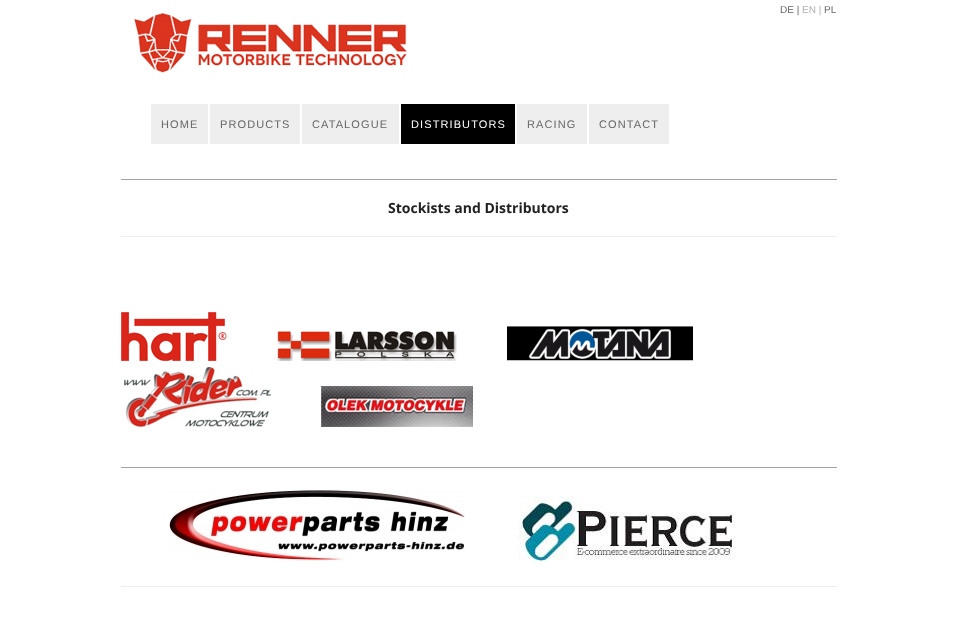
<!DOCTYPE html>
<meta charset="utf-8">
<style>body { margin: 0 } canvas { display: block }</style>
<canvas id="canvas" width="957" height="619"></canvas>
<img id="img1" src="img_01.png" hidden>
<img id="img2" src="img_02.png" hidden>
<img id="img3" src="img_03.png" hidden>
<img id="img4" src="img_04.png" hidden>
<img id="img5" src="img_05.png" hidden>
<img id="img6" src="img_06.png" hidden>
<img id="img7" src="img_07.png" hidden>
<img id="img8" src="img_08.png" hidden>
<script>
window.onload = function () {
	const canvas = document.getElementById("canvas");
	const ctx = canvas.getContext("2d");
	ctx.miterLimit = 4;
	ctx.fontKerning = "normal";
	function txt(s, x, y) {
		ctx.fillText(s, x, y);
	}
	function fill(x, y, w, h) {
		ctx.fillRect(x, y, w, h);
	}
	function img(id, x, y, w, h) {
		ctx.drawImage(document.getElementById(id), x, y, w, h);
	}

	ctx.fillStyle = "#FFFFFF";
	fill(0, 0, 957, 619);
	img("img1", 134, 13, 273, 60);
	ctx.fillStyle = "#EEEEEE";
	fill(151, 104, 518, 40);
	ctx.fillStyle = "#FFFFFF";
	fill(208, 104, 2, 40);
	fill(300, 104, 2, 40);
	fill(399, 104, 2, 40);
	fill(515, 104, 2, 40);
	ctx.fillStyle = "#000000";
	fill(401, 104, 114, 40);
	ctx.fillStyle = "#FFFFFF";
	fill(587, 104, 2, 40);
	ctx.fillStyle = "#A2A2A2";
	fill(121, 179, 716, 1);
	ctx.fillStyle = "#EEEEEE";
	fill(121, 236, 716, 1);
	img("img2", 121, 312, 106, 49);
	img("img3", 277, 331, 180, 30);
	img("img4", 507, 326, 186, 35);
	img("img5", 124, 367, 147, 60);
	img("img6", 321, 386, 152, 41);
	ctx.fillStyle = "#A2A2A2";
	fill(121, 467, 716, 1);
	ctx.fillStyle = "#EEEEEE";
	fill(121, 586, 716, 1);
	img("img7", 169, 490, 296, 71);
	img("img8", 519, 496, 216, 66);
	ctx.font = "10px Liberation Sans";
	ctx.fillStyle = "#666666";
	txt("DE |", 780, 13);
	ctx.fillStyle = "#B0AFAF";
	txt("EN |", 802, 13);
	ctx.fillStyle = "#666666";
	txt("PL", 824, 13);
	ctx.letterSpacing = "1.1px";
	ctx.font = "11px Liberation Sans";
	txt("HOME", 161, 128);
	txt("PRODUCTS", 220, 128);
	txt("CATALOGUE", 312, 128);
	ctx.fillStyle = "#FFFFFF";
	txt("DISTRIBUTORS", 411, 128);
	ctx.fillStyle = "#666666";
	txt("RACING", 527, 128);
	txt("CONTACT", 599, 128);
	ctx.letterSpacing = "0px";
	ctx.font = "bold 14px Open Sans";
	ctx.fillStyle = "#222222";
	txt("Stockists and Distributors", 388, 213);
};
</script>
